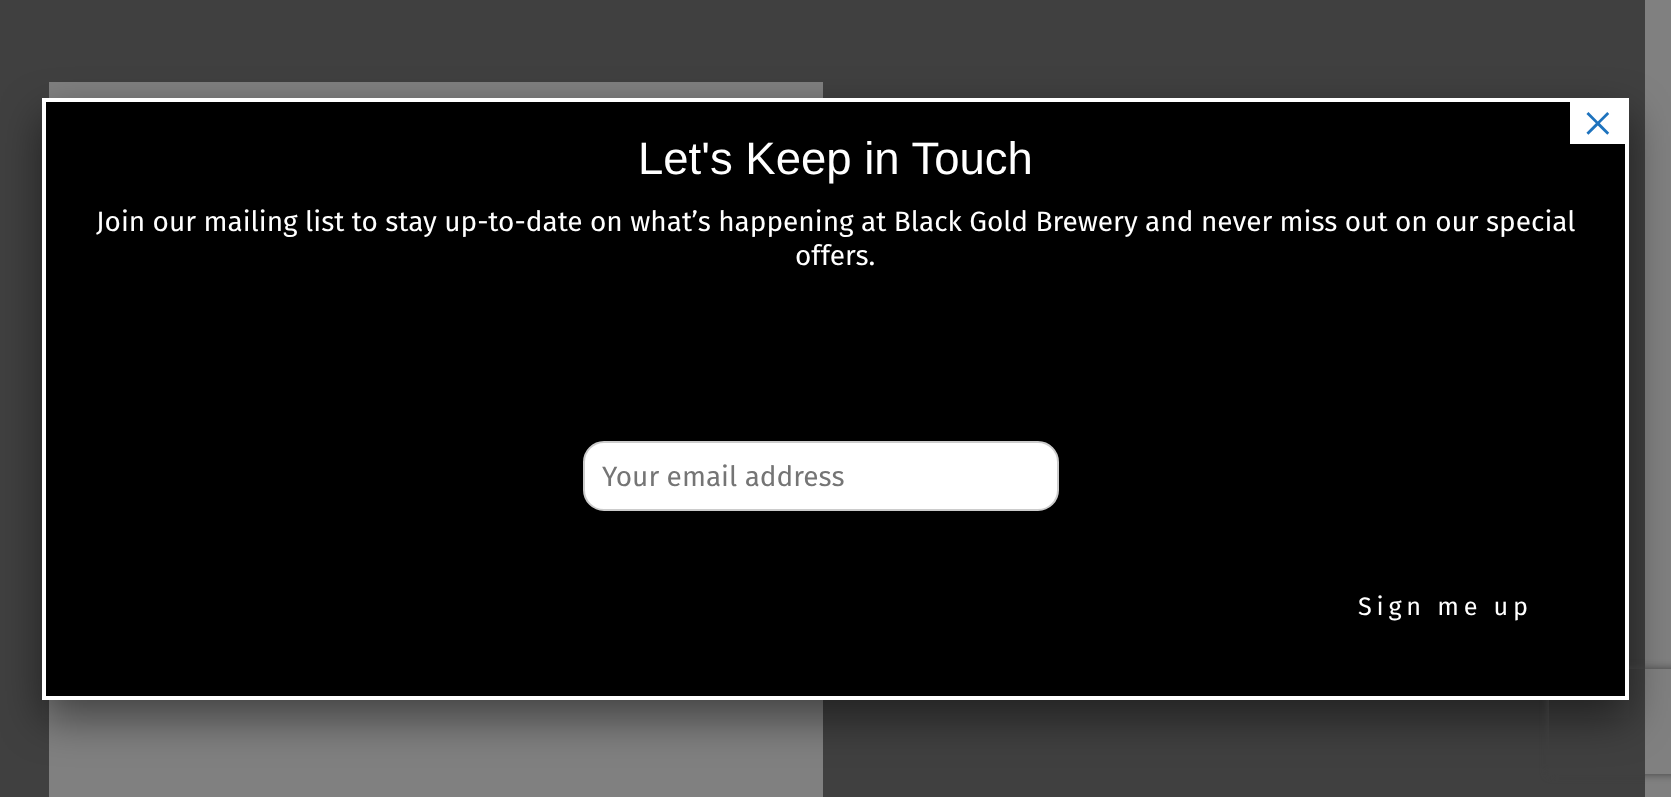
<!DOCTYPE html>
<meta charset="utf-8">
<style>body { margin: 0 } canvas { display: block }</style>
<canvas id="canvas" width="1671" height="797"></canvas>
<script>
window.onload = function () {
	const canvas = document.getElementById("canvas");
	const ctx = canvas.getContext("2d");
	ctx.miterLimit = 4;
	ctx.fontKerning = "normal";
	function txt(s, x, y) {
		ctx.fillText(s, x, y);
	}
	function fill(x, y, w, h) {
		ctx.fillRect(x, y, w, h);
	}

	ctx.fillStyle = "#808080";
	fill(0, 0, 1671, 797);
	ctx.fillStyle = "#404040";
	fill(0, 0, 1645, 797);
	ctx.fillStyle = "#808080";
	fill(49, 82, 774, 715);
	ctx.fillStyle = "rgba(2, 2, 2, 0.5)";
	ctx.filter = "blur(22px)";
	ctx.beginPath();
	ctx.rect(42, 116, 1587, 602);
	ctx.fill();
	ctx.filter = "none";
	ctx.save();
	ctx.beginPath();
	ctx.moveTo(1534, 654);
	ctx.lineTo(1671, 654);
	ctx.lineTo(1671, 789);
	ctx.lineTo(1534, 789);
	ctx.closePath();
	ctx.moveTo(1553, 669);
	ctx.lineTo(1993, 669);
	ctx.bezierCurveTo(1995, 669, 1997, 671, 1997, 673);
	ctx.lineTo(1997, 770);
	ctx.bezierCurveTo(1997, 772, 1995, 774, 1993, 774);
	ctx.lineTo(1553, 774);
	ctx.bezierCurveTo(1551, 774, 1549, 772, 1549, 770);
	ctx.lineTo(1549, 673);
	ctx.bezierCurveTo(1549, 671, 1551, 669, 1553, 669);
	ctx.closePath();
	ctx.clip("evenodd");
	ctx.fillStyle = "#404040";
	ctx.filter = "blur(4.5px)";
	ctx.beginPath();
	ctx.roundRect(1549, 669, 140, 105, 4);
	ctx.fill();
	ctx.filter = "none";
	ctx.restore();
	ctx.fillStyle = "#000000";
	ctx.beginPath();
	ctx.rect(44, 100, 1583, 598);
	ctx.fill();
	ctx.strokeStyle = "#FFFFFF";
	ctx.lineWidth = 4;
	ctx.stroke();
	ctx.fillStyle = "#FFFFFF";
	fill(1570, 102, 55, 42);
	ctx.beginPath();
	ctx.roundRect(584, 442, 474, 68, 20);
	ctx.fill();
	ctx.strokeStyle = "#CCCCCC";
	ctx.lineWidth = 2;
	ctx.stroke();
	ctx.font = "56px Liberation Serif";
	ctx.fillStyle = "#1E73BE";
	txt("×", 1582, 142);
	ctx.font = "45.5px Liberation Sans";
	ctx.fillStyle = "#FFFFFF";
	txt("Let's Keep in Touch", 638, 174);
	ctx.font = "28px Fira Sans";
	txt("Join our mailing list to stay up-to-date on what’s happening at Black Gold Brewery and never miss out on our special", 96, 231);
	txt("offers.", 795, 265);
	ctx.fillStyle = "#757575";
	txt("Your email address", 602, 486);
	ctx.letterSpacing = "4.75px";
	ctx.font = "25.25px Fira Sans";
	ctx.fillStyle = "#FFFFFF";
	txt("Sign me up", 1358, 615);
};
</script>
